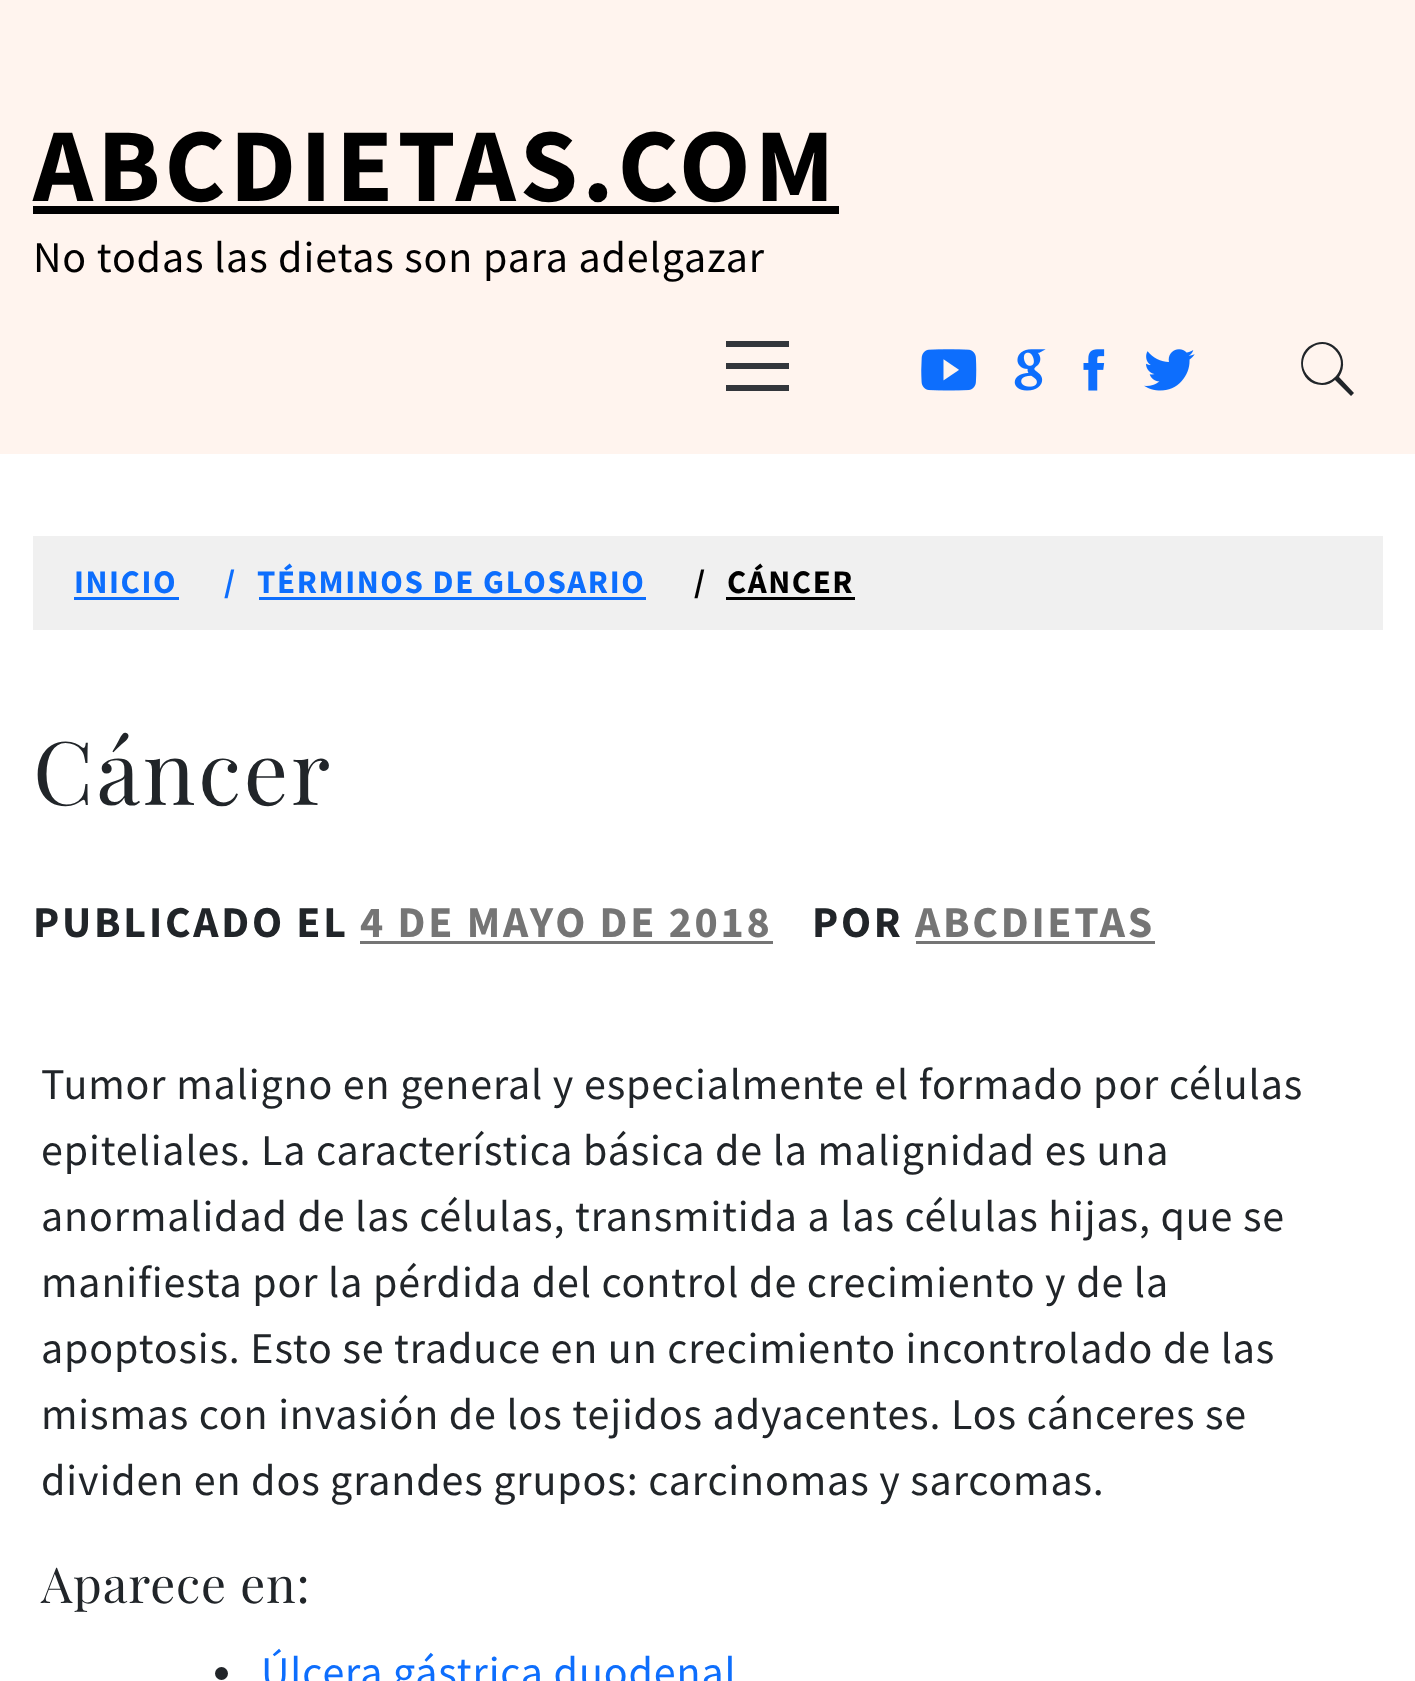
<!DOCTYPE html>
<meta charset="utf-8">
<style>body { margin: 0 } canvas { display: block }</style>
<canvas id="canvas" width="1415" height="1681"></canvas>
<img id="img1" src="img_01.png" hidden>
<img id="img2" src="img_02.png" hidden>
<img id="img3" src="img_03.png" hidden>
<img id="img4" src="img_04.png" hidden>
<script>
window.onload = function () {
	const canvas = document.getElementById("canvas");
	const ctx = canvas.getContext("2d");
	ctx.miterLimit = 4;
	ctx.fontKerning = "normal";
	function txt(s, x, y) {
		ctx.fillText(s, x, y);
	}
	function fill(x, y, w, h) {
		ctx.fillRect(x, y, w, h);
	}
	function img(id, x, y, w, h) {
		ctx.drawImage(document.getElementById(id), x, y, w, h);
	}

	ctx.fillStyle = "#FFFFFF";
	fill(0, 0, 1415, 1681);
	ctx.fillStyle = "#FFF4EE";
	fill(0, 0, 1415, 454);
	ctx.fillStyle = "#000000";
	fill(33, 206, 806, 8);
	ctx.fillStyle = "#33363B";
	fill(726, 363, 63, 6);
	fill(726, 341, 63, 6);
	fill(726, 385, 63, 6);
	img("img1", 921, 349, 56, 42);
	img("img2", 1014, 349, 32, 42);
	img("img3", 1083, 349, 22, 42);
	img("img4", 1144, 349, 51, 42);
	ctx.fillStyle = "#212529";
	ctx.beginPath();
	ctx.moveTo(1354, 393);
	ctx.lineTo(1351, 396);
	ctx.lineTo(1335, 380);
	ctx.bezierCurveTo(1332, 383, 1327, 385, 1322, 385);
	ctx.bezierCurveTo(1298, 385, 1293, 350, 1316, 343);
	ctx.bezierCurveTo(1322, 341, 1329, 342, 1334, 346);
	ctx.bezierCurveTo(1344, 353, 1346, 367, 1339, 377);
	ctx.closePath();
	ctx.moveTo(1309, 377);
	ctx.bezierCurveTo(1326, 395, 1353, 368, 1335, 350);
	ctx.bezierCurveTo(1318, 332, 1291, 359, 1309, 377);
	ctx.closePath();
	ctx.fill();
	ctx.fillStyle = "#F0F0F0";
	fill(33, 536, 1350, 94);
	ctx.fillStyle = "#0D6EFD";
	fill(74, 597, 105, 3);
	fill(259, 597, 387, 3);
	ctx.fillStyle = "#000000";
	fill(726, 597, 129, 3);
	ctx.fillStyle = "#757575";
	fill(360, 941, 413, 3);
	fill(916, 941, 239, 3);
	ctx.fillStyle = "#212529";
	ctx.beginPath();
	ctx.arc(221.5, 1673.5, 6.5, 0, Math.PI * 2);
	ctx.fill();
	ctx.letterSpacing = "4.25px";
	ctx.font = "bold 104.5px Source Sans Pro";
	ctx.fillStyle = "#000000";
	txt("ABCDIETAS.COM", 33, 201);
	ctx.letterSpacing = "0.88px";
	ctx.font = "44px Source Sans Pro";
	txt("No todas las dietas son para adelgazar", 33, 272);
	ctx.letterSpacing = "1.6px";
	ctx.font = "bold 33px Source Sans Pro";
	ctx.fillStyle = "#0D6EFD";
	txt("INICIO", 74, 593);
	txt("/", 224, 593);
	txt("TÉRMINOS DE GLOSARIO", 257, 593);
	ctx.fillStyle = "#000000";
	txt("/", 694, 593);
	txt("CÁNCER", 727, 593);
	ctx.letterSpacing = "2.75px";
	ctx.font = "88px Playfair Display";
	ctx.fillStyle = "#212529";
	txt("Cáncer", 33, 805);
	ctx.font = "bold 44px Source Sans Pro";
	txt("PUBLICADO EL", 33, 937);
	ctx.fillStyle = "#757575";
	txt("4 DE MAYO DE 2018", 360, 937);
	ctx.fillStyle = "#212529";
	txt("POR", 812, 937);
	ctx.fillStyle = "#757575";
	txt("ABCDIETAS", 915, 937);
	ctx.letterSpacing = "0.88px";
	ctx.font = "44px Source Sans Pro";
	ctx.fillStyle = "#212529";
	txt("Tumor maligno en general y especialmente el formado por células", 41, 1099);
	txt("epiteliales. La característica básica de la malignidad es una", 41, 1165);
	txt("anormalidad de las células, transmitida a las células hijas, que se", 41, 1231);
	txt("manifiesta por la pérdida del control de crecimiento y de la", 41, 1297);
	txt("apoptosis. Esto se traduce en un crecimiento incontrolado de las", 41, 1363);
	txt("mismas con invasión de los tejidos adyacentes. Los cánceres se", 41, 1429);
	txt("dividen en dos grandes grupos: carcinomas y sarcomas.", 41, 1495);
	ctx.font = "49.5px Playfair Display";
	txt("Aparece en:", 41, 1603);
	ctx.font = "44px Source Sans Pro";
	ctx.fillStyle = "#0D6EFD";
	txt("Úlcera gástrica duodenal", 261, 1687);
};
</script>
